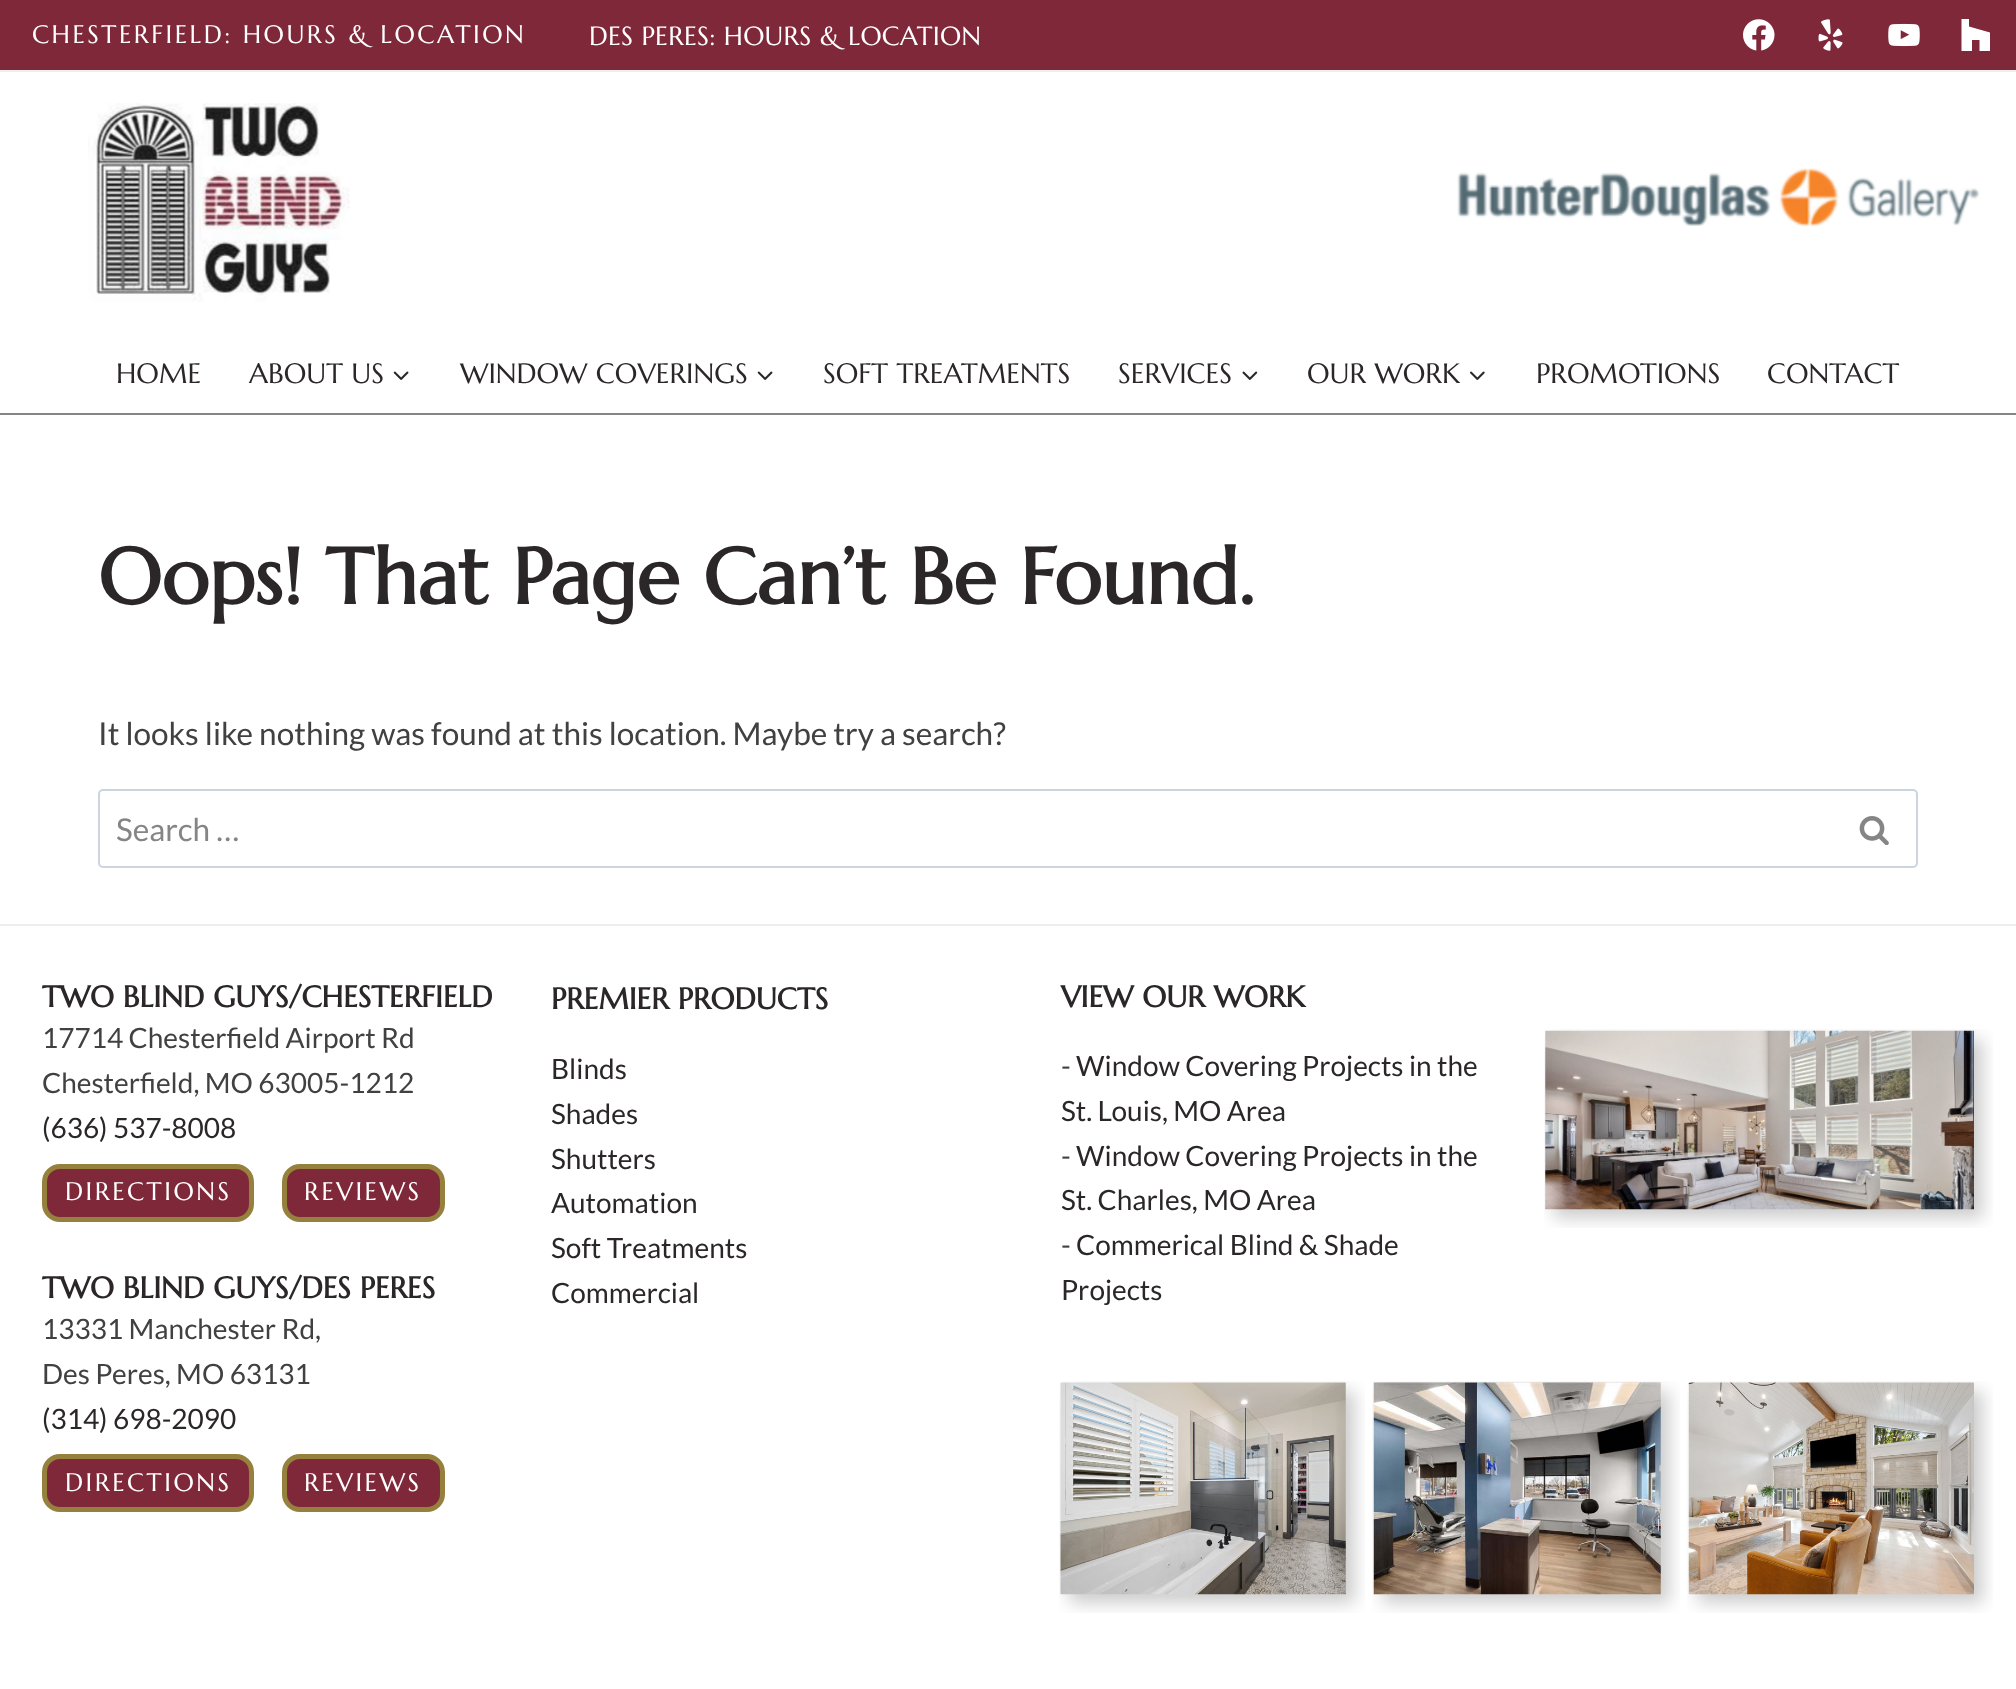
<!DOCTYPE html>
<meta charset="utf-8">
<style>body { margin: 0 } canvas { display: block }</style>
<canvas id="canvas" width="2016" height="1689"></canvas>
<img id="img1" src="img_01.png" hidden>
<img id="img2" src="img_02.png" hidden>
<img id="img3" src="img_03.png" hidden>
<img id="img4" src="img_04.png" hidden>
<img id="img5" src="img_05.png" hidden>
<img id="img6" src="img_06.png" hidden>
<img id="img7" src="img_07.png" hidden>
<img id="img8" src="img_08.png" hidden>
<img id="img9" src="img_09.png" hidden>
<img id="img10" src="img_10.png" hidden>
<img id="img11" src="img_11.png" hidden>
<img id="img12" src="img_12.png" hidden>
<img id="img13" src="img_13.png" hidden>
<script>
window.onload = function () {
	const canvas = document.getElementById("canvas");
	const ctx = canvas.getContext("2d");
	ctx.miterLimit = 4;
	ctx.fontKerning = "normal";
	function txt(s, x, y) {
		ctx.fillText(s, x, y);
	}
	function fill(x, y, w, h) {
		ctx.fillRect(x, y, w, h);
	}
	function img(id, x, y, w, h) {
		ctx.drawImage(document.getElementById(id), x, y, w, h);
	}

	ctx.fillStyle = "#FFFFFF";
	fill(0, 0, 2016, 1689);
	ctx.fillStyle = "#7F2839";
	fill(0, 0, 2016, 70);
	ctx.fillStyle = "#EEEEEE";
	fill(0, 70, 2016, 2);
	img("img1", 1743, 19, 32, 32);
	img("img2", 1818, 19, 25, 32);
	img("img3", 1888, 23, 32, 24);
	ctx.fillStyle = "#FFFFFF";
	ctx.beginPath();
	ctx.moveTo(1979.5, 51);
	ctx.lineTo(1990, 51);
	ctx.lineTo(1990, 32.5);
	ctx.lineTo(1969, 26.5);
	ctx.lineTo(1969, 19);
	ctx.lineTo(1961.5, 19);
	ctx.lineTo(1961.5, 51);
	ctx.lineTo(1972, 51);
	ctx.lineTo(1972, 40);
	ctx.lineTo(1979.5, 40);
	ctx.closePath();
	ctx.fill();
	img("img4", 88, 103, 262, 199);
	img("img5", 1457, 168, 523, 58);
	ctx.fillStyle = "#858585";
	fill(0, 413, 2016, 2);
	img("img6", 393, 371, 16, 9);
	img("img6", 757, 371, 16, 9);
	img("img7", 1242, 371, 16, 9);
	img("img8", 1470, 371, 15, 9);
	ctx.beginPath();
	ctx.roundRect(99, 790, 1818, 77, 4);
	ctx.strokeStyle = "#CBD5E0";
	ctx.lineWidth = 2;
	ctx.stroke();
	img("img9", 1859, 816, 30, 29);
	ctx.fillStyle = "#EEEEEE";
	fill(0, 924, 2016, 2);
	ctx.fillStyle = "#7F2839";
	ctx.beginPath();
	ctx.roundRect(44.5, 1166.5, 207, 53, 15.5);
	ctx.fill();
	ctx.strokeStyle = "#95803D";
	ctx.lineWidth = 5;
	ctx.stroke();
	ctx.beginPath();
	ctx.roundRect(284.5, 1166.5, 158, 53, 15.5);
	ctx.fill();
	ctx.stroke();
	ctx.beginPath();
	ctx.roundRect(44.5, 1456.5, 207, 53, 15.5);
	ctx.fill();
	ctx.stroke();
	ctx.beginPath();
	ctx.roundRect(284.5, 1456.5, 158, 53, 15.5);
	ctx.fill();
	ctx.stroke();
	img("img10", 1544, 1029, 449, 199);
	img("img11", 1059, 1381, 306, 232);
	img("img12", 1372, 1381, 308, 232);
	img("img13", 1687, 1381, 306, 232);
	ctx.letterSpacing = "2.5px";
	ctx.font = "25.25px Marcellus";
	ctx.fillStyle = "#FFFFFF";
	txt("CHESTERFIELD: HOURS & LOCATION", 32, 43);
	ctx.letterSpacing = "0.25px";
	ctx.font = "26.25px Marcellus";
	txt("DES PERES: HOURS & LOCATION", 589, 45);
	ctx.letterSpacing = "0px";
	ctx.font = "28px Marcellus";
	ctx.fillStyle = "#2B2729";
	txt("HOME", 116, 383);
	txt("ABOUT US", 249, 383);
	txt("WINDOW COVERINGS", 460, 383);
	txt("SOFT TREATMENTS", 823, 383);
	txt("SERVICES", 1118, 383);
	txt("OUR WORK", 1307, 383);
	txt("PROMOTIONS", 1536, 383);
	txt("CONTACT", 1767, 383);
	ctx.font = "bold 78.75px Marcellus";
	txt("Oops! That Page Can’t Be Found.", 98, 604);
	ctx.font = "31.5px Lato";
	ctx.fillStyle = "#414141";
	txt("It looks like nothing was found at this location. Maybe try a search?", 98, 745);
	ctx.fillStyle = "#858585";
	txt("Search …", 116, 841);
	ctx.font = "bold 29.75px Marcellus";
	ctx.fillStyle = "#2B2729";
	txt("TWO BLIND GUYS/CHESTERFIELD", 42, 1007);
	ctx.font = "28px Lato";
	ctx.fillStyle = "#414141";
	txt("17714 Chesterfield Airport Rd", 42, 1048);
	txt("Chesterfield, MO 63005-1212", 42, 1093);
	ctx.fillStyle = "#2B2729";
	txt("(636) 537-8008", 42, 1138);
	ctx.letterSpacing = "2.5px";
	ctx.font = "25.25px Marcellus";
	ctx.fillStyle = "#FFFFFF";
	txt("DIRECTIONS", 65, 1200);
	txt("REVIEWS", 304, 1200);
	ctx.letterSpacing = "0px";
	ctx.font = "bold 29.75px Marcellus";
	ctx.fillStyle = "#2B2729";
	txt("TWO BLIND GUYS/DES PERES", 42, 1298);
	ctx.font = "28px Lato";
	ctx.fillStyle = "#414141";
	txt("13331 Manchester Rd,", 42, 1339);
	txt("Des Peres, MO 63131", 42, 1384);
	ctx.fillStyle = "#2B2729";
	txt("(314) 698-2090", 42, 1429);
	ctx.letterSpacing = "2.5px";
	ctx.font = "25.25px Marcellus";
	ctx.fillStyle = "#FFFFFF";
	txt("DIRECTIONS", 65, 1491);
	txt("REVIEWS", 304, 1491);
	ctx.letterSpacing = "0px";
	ctx.font = "bold 29.75px Marcellus";
	ctx.fillStyle = "#2B2729";
	txt("PREMIER PRODUCTS", 551, 1009);
	ctx.font = "28px Lato";
	txt("Blinds", 551, 1079);
	txt("Shades", 551, 1124);
	txt("Shutters", 551, 1169);
	txt("Automation", 551, 1213);
	txt("Soft Treatments", 551, 1258);
	txt("Commercial", 551, 1303);
	ctx.font = "bold 29.75px Marcellus";
	txt("VIEW OUR WORK", 1061, 1007);
	ctx.font = "28px Lato";
	ctx.fillStyle = "#414141";
	txt("-", 1061, 1076);
	ctx.fillStyle = "#2B2729";
	txt("Window Covering Projects in the", 1076, 1076);
	txt("St. Louis, MO Area", 1061, 1121);
	ctx.fillStyle = "#414141";
	txt("-", 1061, 1166);
	ctx.fillStyle = "#2B2729";
	txt("Window Covering Projects in the", 1076, 1166);
	txt("St. Charles, MO Area", 1061, 1210);
	ctx.fillStyle = "#414141";
	txt("-", 1061, 1255);
	ctx.fillStyle = "#2B2729";
	txt("Commerical Blind & Shade", 1076, 1255);
	txt("Projects", 1061, 1300);
};
</script>
